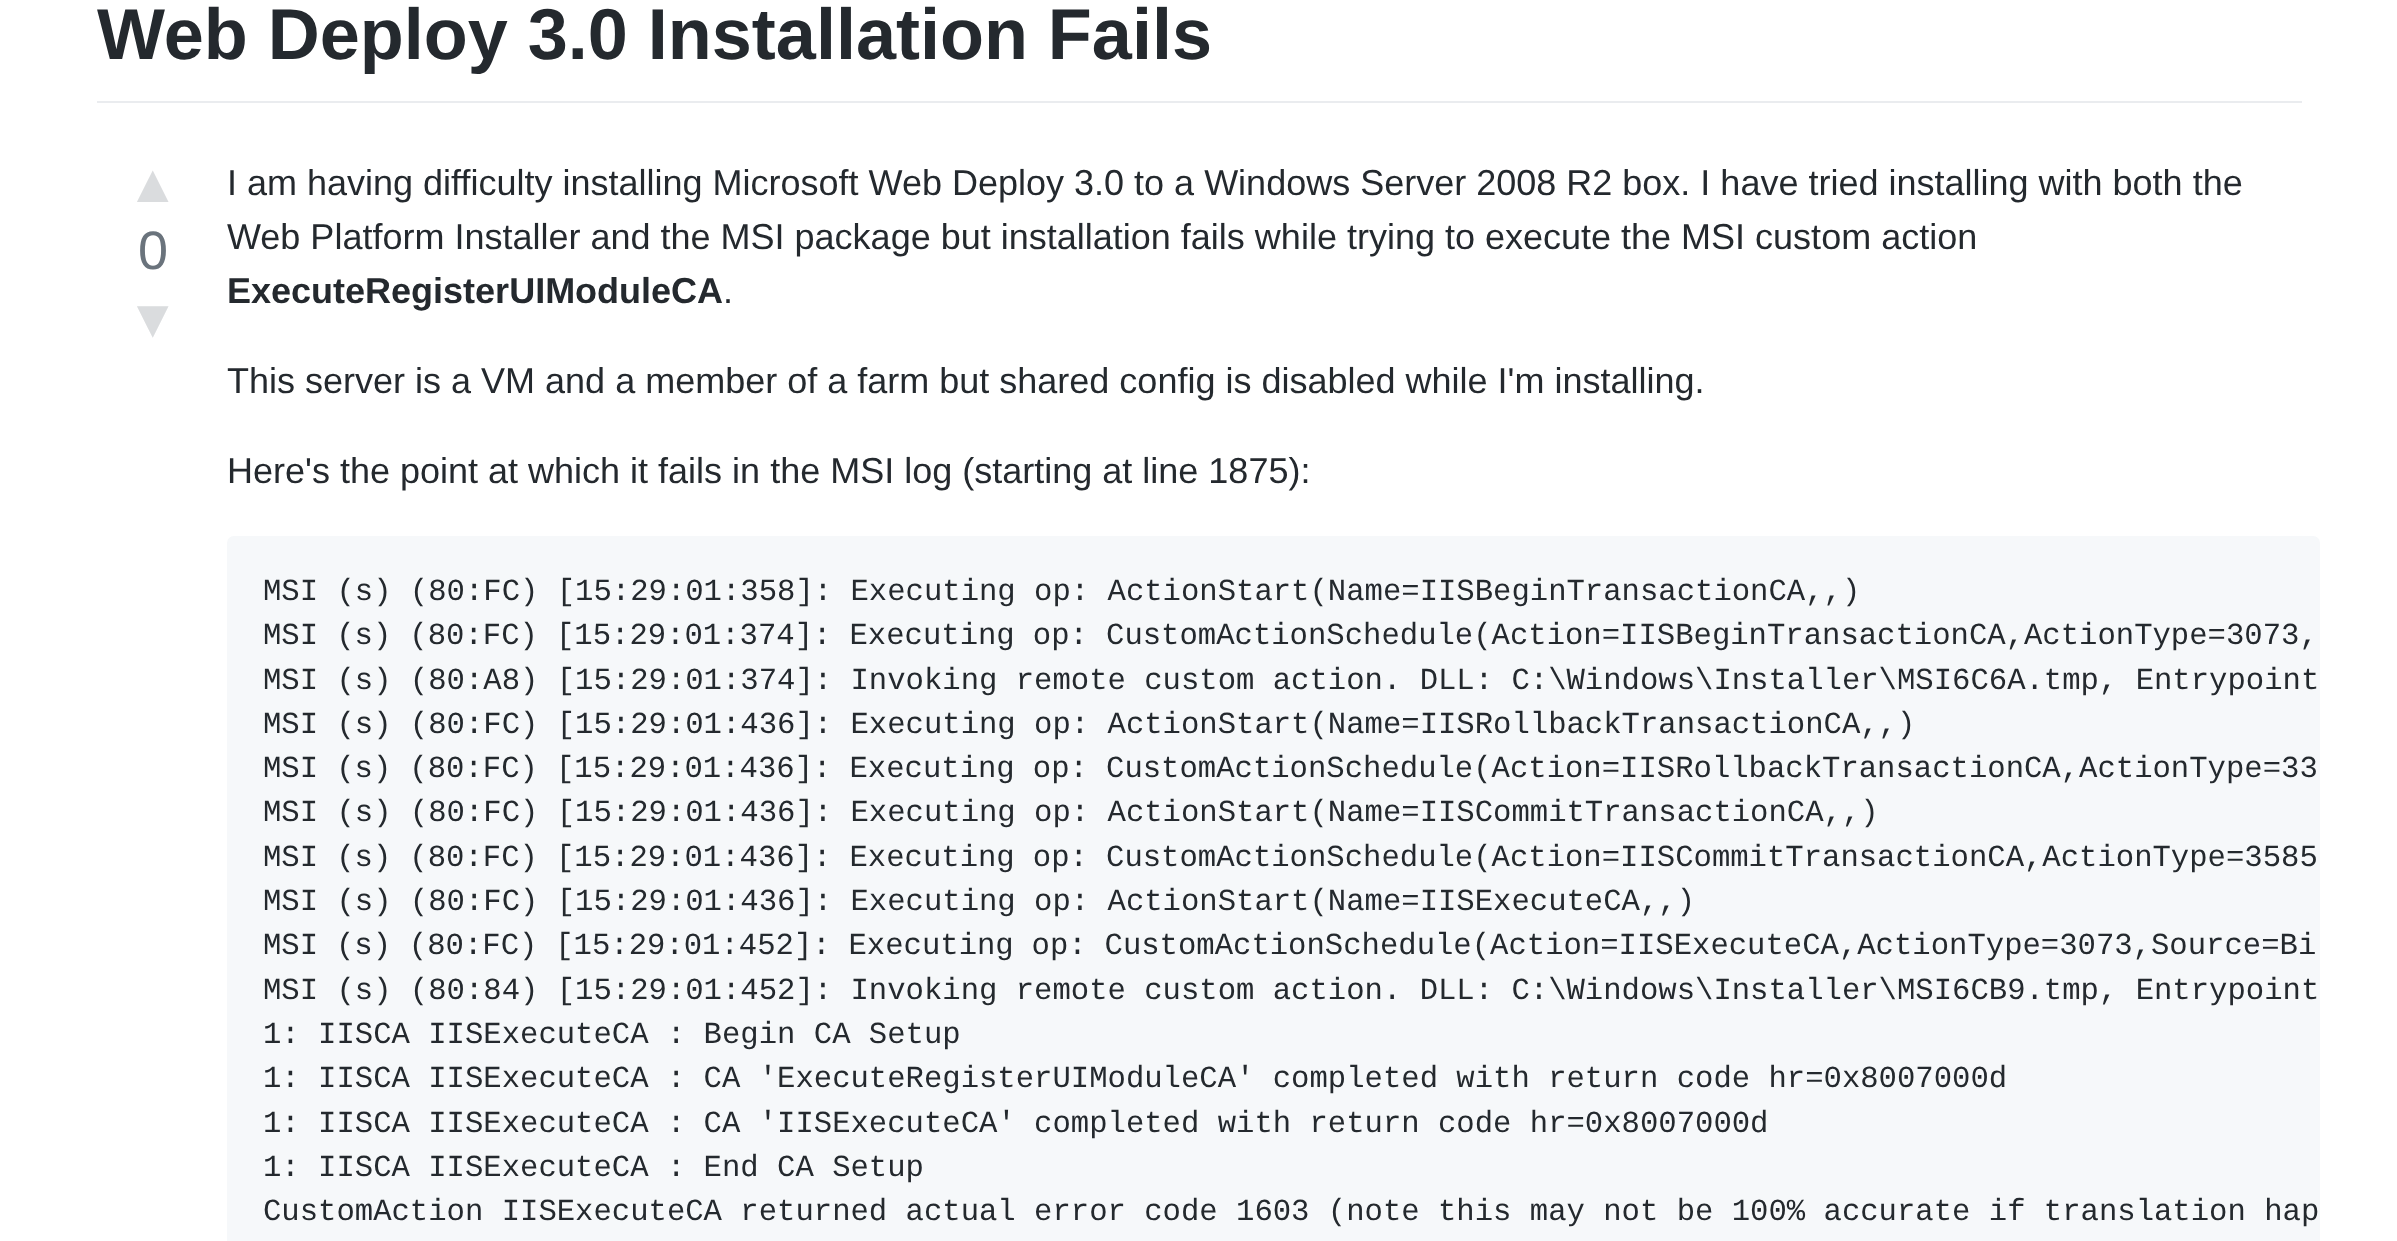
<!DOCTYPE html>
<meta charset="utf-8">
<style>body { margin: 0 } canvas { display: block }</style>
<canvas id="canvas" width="2397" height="1241"></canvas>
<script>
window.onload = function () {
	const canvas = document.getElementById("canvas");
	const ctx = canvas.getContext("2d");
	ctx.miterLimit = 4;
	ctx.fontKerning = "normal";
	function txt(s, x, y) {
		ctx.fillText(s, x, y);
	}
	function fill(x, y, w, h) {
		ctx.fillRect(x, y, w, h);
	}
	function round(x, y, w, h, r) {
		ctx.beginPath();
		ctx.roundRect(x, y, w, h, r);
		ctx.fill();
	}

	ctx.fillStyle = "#FFFFFF";
	fill(0, 0, 2397, 1241);
	ctx.fillStyle = "#EAECEF";
	fill(97, 101, 2205, 2);
	ctx.fillStyle = "#F6F8FA";
	round(227, 536, 2093, 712, 7);
	ctx.font = "bold 72px Liberation Sans";
	ctx.fillStyle = "#24292E";
	txt("Web Deploy 3.0 Installation Fails", 97, 59);
	ctx.font = "54px Liberation Sans";
	ctx.fillStyle = "#DADCDE";
	txt("▲", 126, 202);
	ctx.fillStyle = "#6A737C";
	txt("0", 138, 269);
	ctx.fillStyle = "#DADCDE";
	txt("▼", 126, 337);
	ctx.font = "36px Liberation Sans";
	ctx.fillStyle = "#24292E";
	txt("I am having difficulty installing Microsoft Web Deploy 3.0 to a Windows Server 2008 R2 box. I have tried installing with both the", 227, 195);
	txt("Web Platform Installer and the MSI package but installation fails while trying to execute the MSI custom action", 227, 249);
	ctx.font = "bold 36px Liberation Sans";
	txt("ExecuteRegisterUIModuleCA", 227, 303);
	ctx.font = "36px Liberation Sans";
	txt(".", 723, 303);
	txt("This server is a VM and a member of a farm but shared config is disabled while I'm installing.", 227, 393);
	txt("Here's the point at which it fails in the MSI log (starting at line 1875):", 227, 483);
	ctx.font = "30.6px Liberation Mono";
	txt("MSI (s) (80:FC) [15:29:01:358]: Executing op: ActionStart(Name=IISBeginTransactionCA,,)", 263, 600);
	ctx.wordSpacing = "-0.25px";
	txt("MSI (s) (80:FC) [15:29:01:374]: Executing op: CustomActionSchedule(Action=IISBeginTransactionCA,ActionType=3073,", 263, 644);
	ctx.wordSpacing = "0px";
	txt("MSI (s) (80:A8) [15:29:01:374]: Invoking remote custom action. DLL: C:\\Windows\\Installer\\MSI6C6A.tmp, Entrypoint", 263, 689);
	txt("MSI (s) (80:FC) [15:29:01:436]: Executing op: ActionStart(Name=IISRollbackTransactionCA,,)", 263, 733);
	ctx.wordSpacing = "-0.25px";
	txt("MSI (s) (80:FC) [15:29:01:436]: Executing op: CustomActionSchedule(Action=IISRollbackTransactionCA,ActionType=33", 263, 777);
	ctx.wordSpacing = "0px";
	txt("MSI (s) (80:FC) [15:29:01:436]: Executing op: ActionStart(Name=IISCommitTransactionCA,,)", 263, 821);
	ctx.wordSpacing = "-0.25px";
	txt("MSI (s) (80:FC) [15:29:01:436]: Executing op: CustomActionSchedule(Action=IISCommitTransactionCA,ActionType=3585", 263, 866);
	ctx.wordSpacing = "0px";
	txt("MSI (s) (80:FC) [15:29:01:436]: Executing op: ActionStart(Name=IISExecuteCA,,)", 263, 910);
	ctx.wordSpacing = "-0.5px";
	txt("MSI (s) (80:FC) [15:29:01:452]: Executing op: CustomActionSchedule(Action=IISExecuteCA,ActionType=3073,Source=Bi", 263, 954);
	ctx.wordSpacing = "0px";
	txt("MSI (s) (80:84) [15:29:01:452]: Invoking remote custom action. DLL: C:\\Windows\\Installer\\MSI6CB9.tmp, Entrypoint", 263, 999);
	txt("1: IISCA IISExecuteCA : Begin CA Setup", 263, 1043);
	txt("1: IISCA IISExecuteCA : CA 'ExecuteRegisterUIModuleCA' completed with return code hr=0x8007000d", 263, 1087);
	txt("1: IISCA IISExecuteCA : CA 'IISExecuteCA' completed with return code hr=0x8007000d", 263, 1132);
	txt("1: IISCA IISExecuteCA : End CA Setup", 263, 1176);
	txt("CustomAction IISExecuteCA returned actual error code 1603 (note this may not be 100% accurate if translation hap", 263, 1220);
};
</script>
